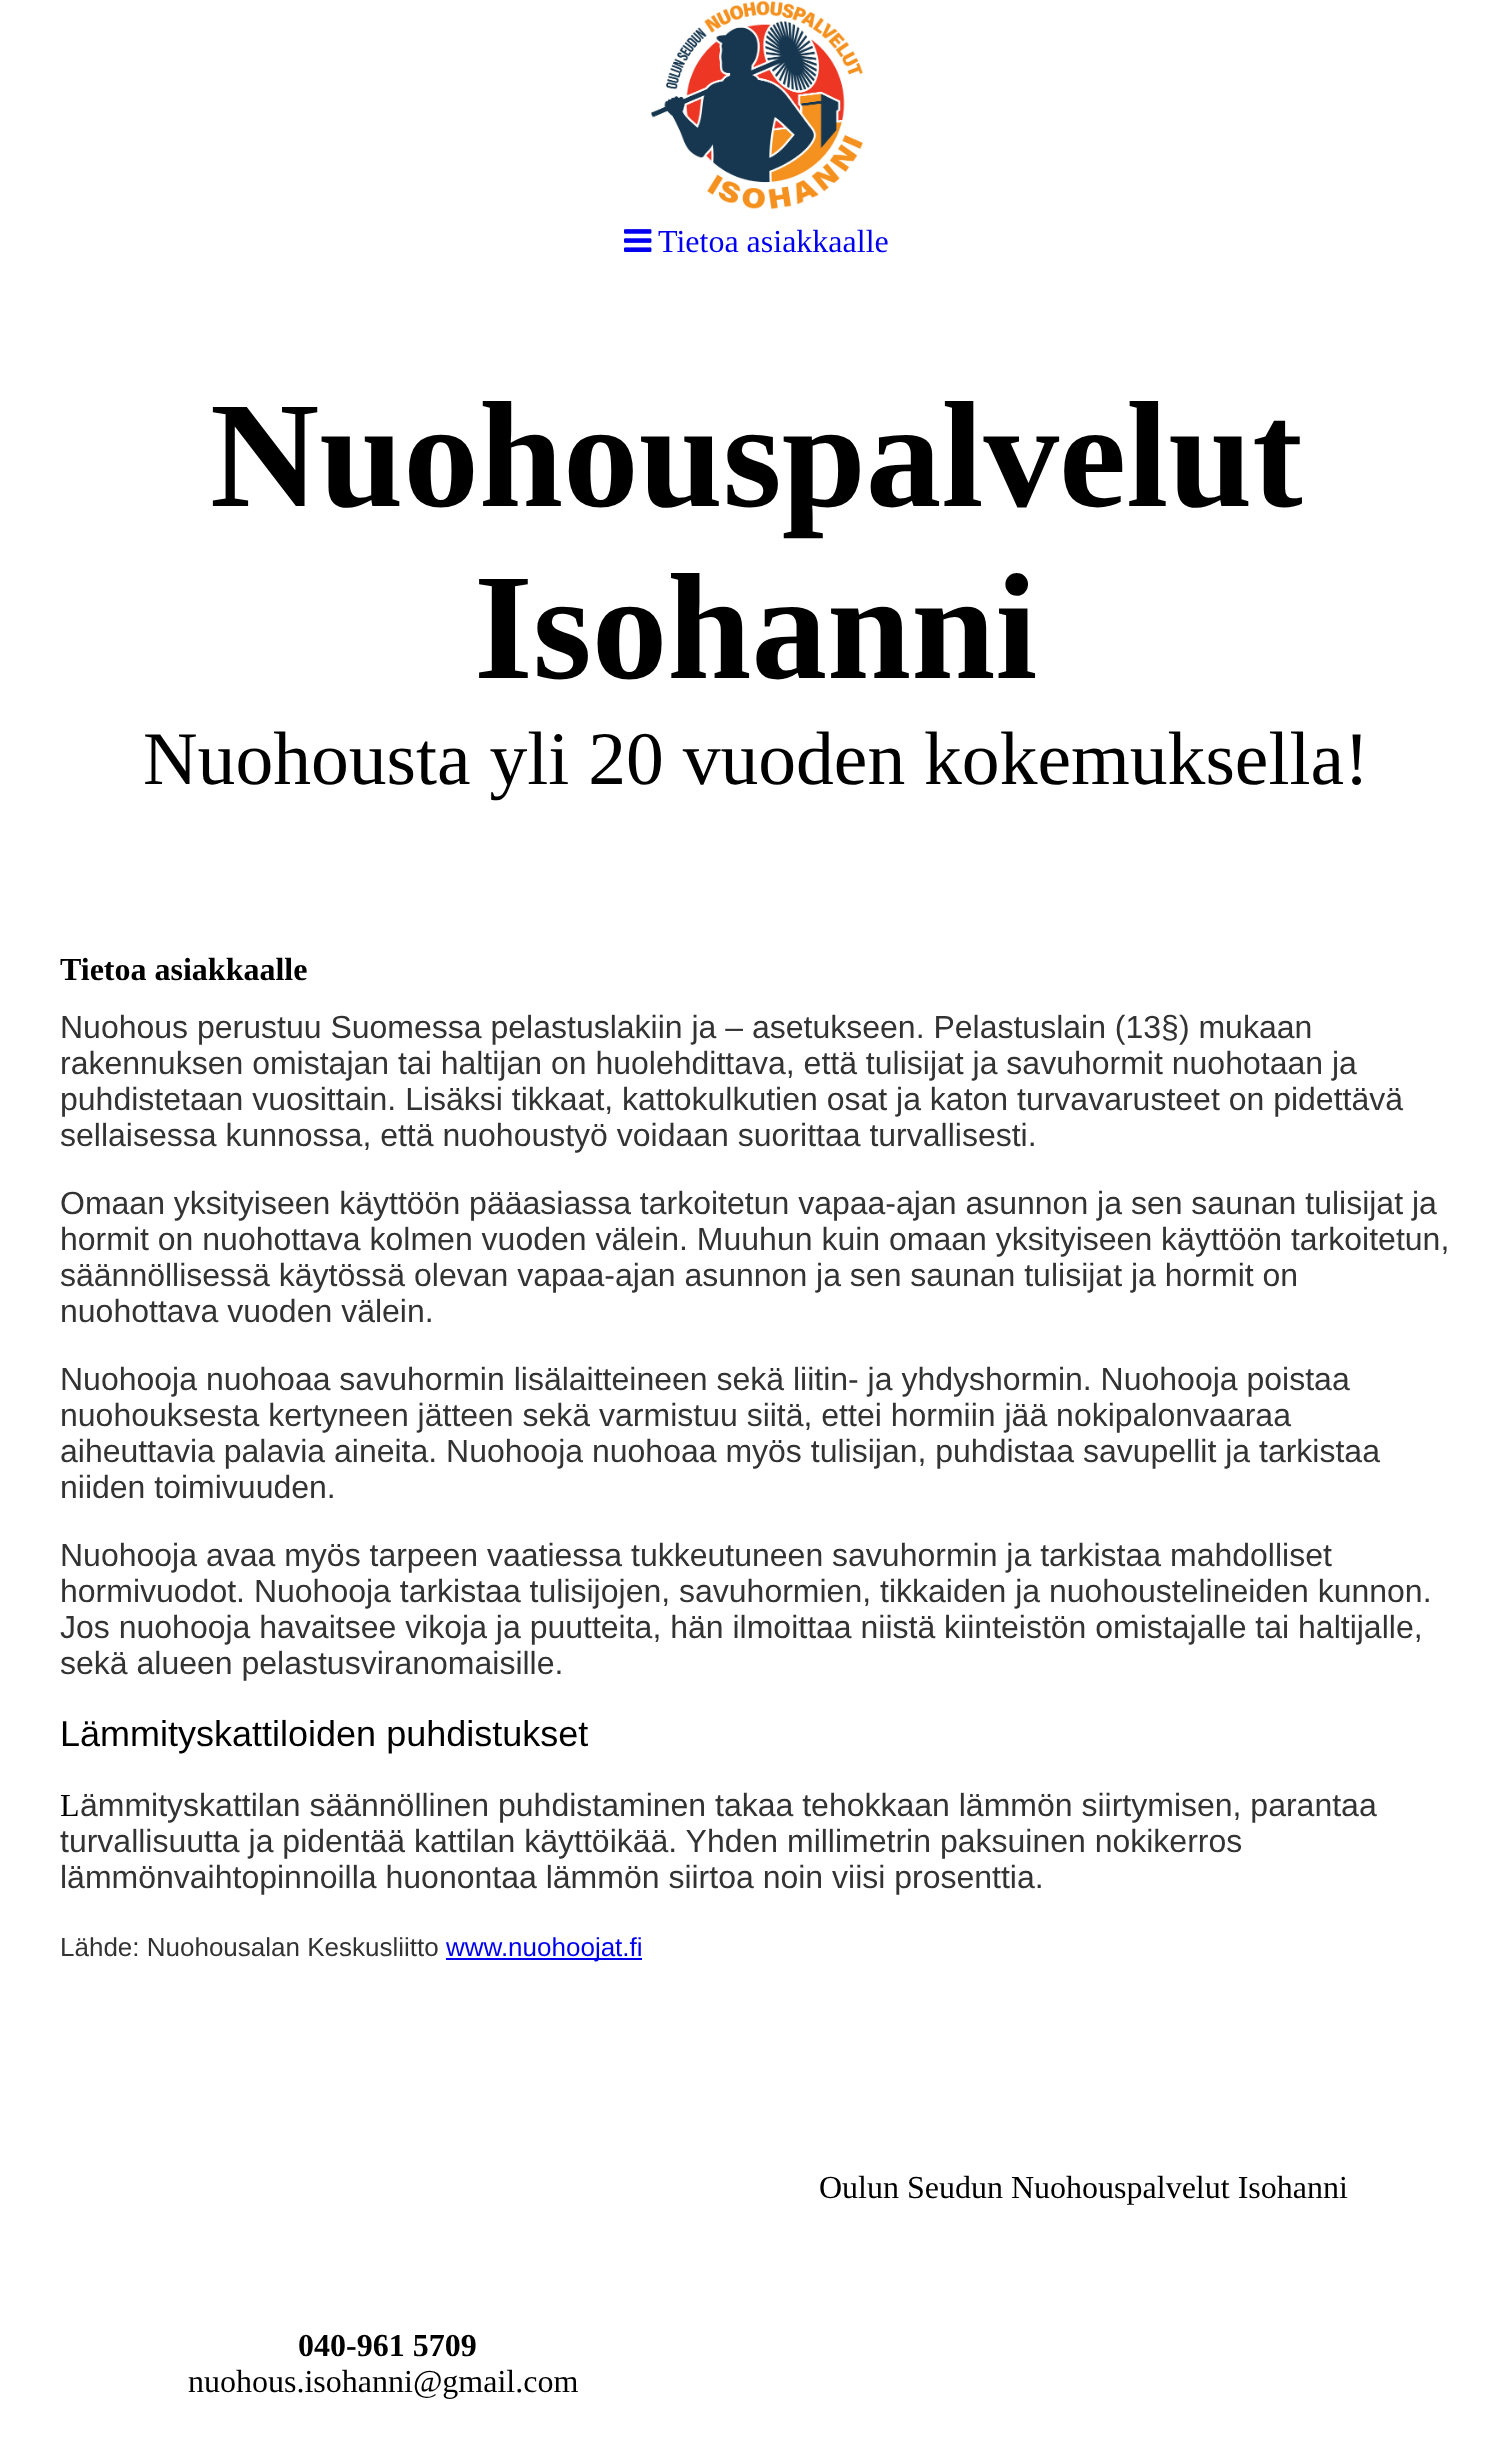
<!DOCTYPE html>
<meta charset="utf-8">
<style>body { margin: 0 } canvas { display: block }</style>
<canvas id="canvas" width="1512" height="2451"></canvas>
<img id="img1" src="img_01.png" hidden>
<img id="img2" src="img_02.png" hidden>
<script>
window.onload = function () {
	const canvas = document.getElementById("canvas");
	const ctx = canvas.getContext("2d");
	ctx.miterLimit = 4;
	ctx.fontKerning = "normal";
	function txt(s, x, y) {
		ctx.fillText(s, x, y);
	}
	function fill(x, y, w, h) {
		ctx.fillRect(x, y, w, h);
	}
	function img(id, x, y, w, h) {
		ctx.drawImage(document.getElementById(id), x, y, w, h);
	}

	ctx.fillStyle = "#FFFFFF";
	fill(0, 0, 1512, 2451);
	img("img1", 650, 0, 214, 210);
	img("img2", 624, 229, 28, 23);
	ctx.fillStyle = "#0000EE";
	fill(446, 1958, 196, 2);
	ctx.font = "32px Liberation Serif";
	txt("Tietoa asiakkaalle", 658, 252);
	ctx.font = "bold 151.25px Liberation Serif";
	ctx.fillStyle = "#000000";
	txt("Nuohouspalvelut", 210, 506);
	txt("Isohanni", 474, 678);
	ctx.font = "75.6px Liberation Serif";
	txt("Nuohousta yli 20 vuoden kokemuksella!", 143, 784);
	ctx.font = "bold 32px Liberation Serif";
	txt("Tietoa asiakkaalle", 60, 980);
	ctx.font = "32px Liberation Sans";
	ctx.fillStyle = "#333333";
	txt("Nuohous perustuu Suomessa pelastuslakiin ja – asetukseen. Pelastuslain (13§) mukaan", 60, 1038);
	txt("rakennuksen omistajan tai haltijan on huolehdittava, että tulisijat ja savuhormit nuohotaan ja", 60, 1074);
	txt("puhdistetaan vuosittain. Lisäksi tikkaat, kattokulkutien osat ja katon turvavarusteet on pidettävä", 60, 1110);
	txt("sellaisessa kunnossa, että nuohoustyö voidaan suorittaa turvallisesti.", 60, 1146);
	txt("Omaan yksityiseen käyttöön pääasiassa tarkoitetun vapaa-ajan asunnon ja sen saunan tulisijat ja", 60, 1214);
	txt("hormit on nuohottava kolmen vuoden välein. Muuhun kuin omaan yksityiseen käyttöön tarkoitetun,", 60, 1250);
	txt("säännöllisessä käytössä olevan vapaa-ajan asunnon ja sen saunan tulisijat ja hormit on", 60, 1286);
	txt("nuohottava vuoden välein.", 60, 1322);
	txt("Nuohooja nuohoaa savuhormin lisälaitteineen sekä liitin- ja yhdyshormin. Nuohooja poistaa", 60, 1390);
	txt("nuohouksesta kertyneen jätteen sekä varmistuu siitä, ettei hormiin jää nokipalonvaaraa", 60, 1426);
	txt("aiheuttavia palavia aineita. Nuohooja nuohoaa myös tulisijan, puhdistaa savupellit ja tarkistaa", 60, 1462);
	txt("niiden toimivuuden.", 60, 1498);
	txt("Nuohooja avaa myös tarpeen vaatiessa tukkeutuneen savuhormin ja tarkistaa mahdolliset", 60, 1566);
	txt("hormivuodot. Nuohooja tarkistaa tulisijojen, savuhormien, tikkaiden ja nuohoustelineiden kunnon.", 60, 1602);
	txt("Jos nuohooja havaitsee vikoja ja puutteita, hän ilmoittaa niistä kiinteistön omistajalle tai haltijalle,", 60, 1638);
	txt("sekä alueen pelastusviranomaisille.", 60, 1674);
	ctx.font = "36px Liberation Sans";
	ctx.fillStyle = "#000000";
	txt("Lämmityskattiloiden puhdistukset", 60, 1746);
	ctx.font = "32px Liberation Serif";
	txt("L", 60, 1816);
	ctx.font = "32px Liberation Sans";
	ctx.fillStyle = "#333333";
	txt("ämmityskattilan säännöllinen puhdistaminen takaa tehokkaan lämmön siirtymisen, parantaa", 80, 1816);
	txt("turvallisuutta ja pidentää kattilan käyttöikää. Yhden millimetrin paksuinen nokikerros", 60, 1852);
	txt("lämmönvaihtopinnoilla huonontaa lämmön siirtoa noin viisi prosenttia.", 60, 1888);
	ctx.font = "26px Liberation Sans";
	txt("Lähde: Nuohousalan Keskusliitto", 60, 1956);
	ctx.fillStyle = "#0000EE";
	txt("www.nuohoojat.fi", 446, 1956);
	ctx.font = "32px Liberation Serif";
	ctx.fillStyle = "#000000";
	txt("Oulun Seudun Nuohouspalvelut Isohanni", 819, 2198);
	ctx.font = "bold 32px Liberation Serif";
	txt("040-961 5709", 298, 2356);
	ctx.font = "32px Liberation Serif";
	txt("nuohous.isohanni@gmail.com", 188, 2392);
};
</script>
